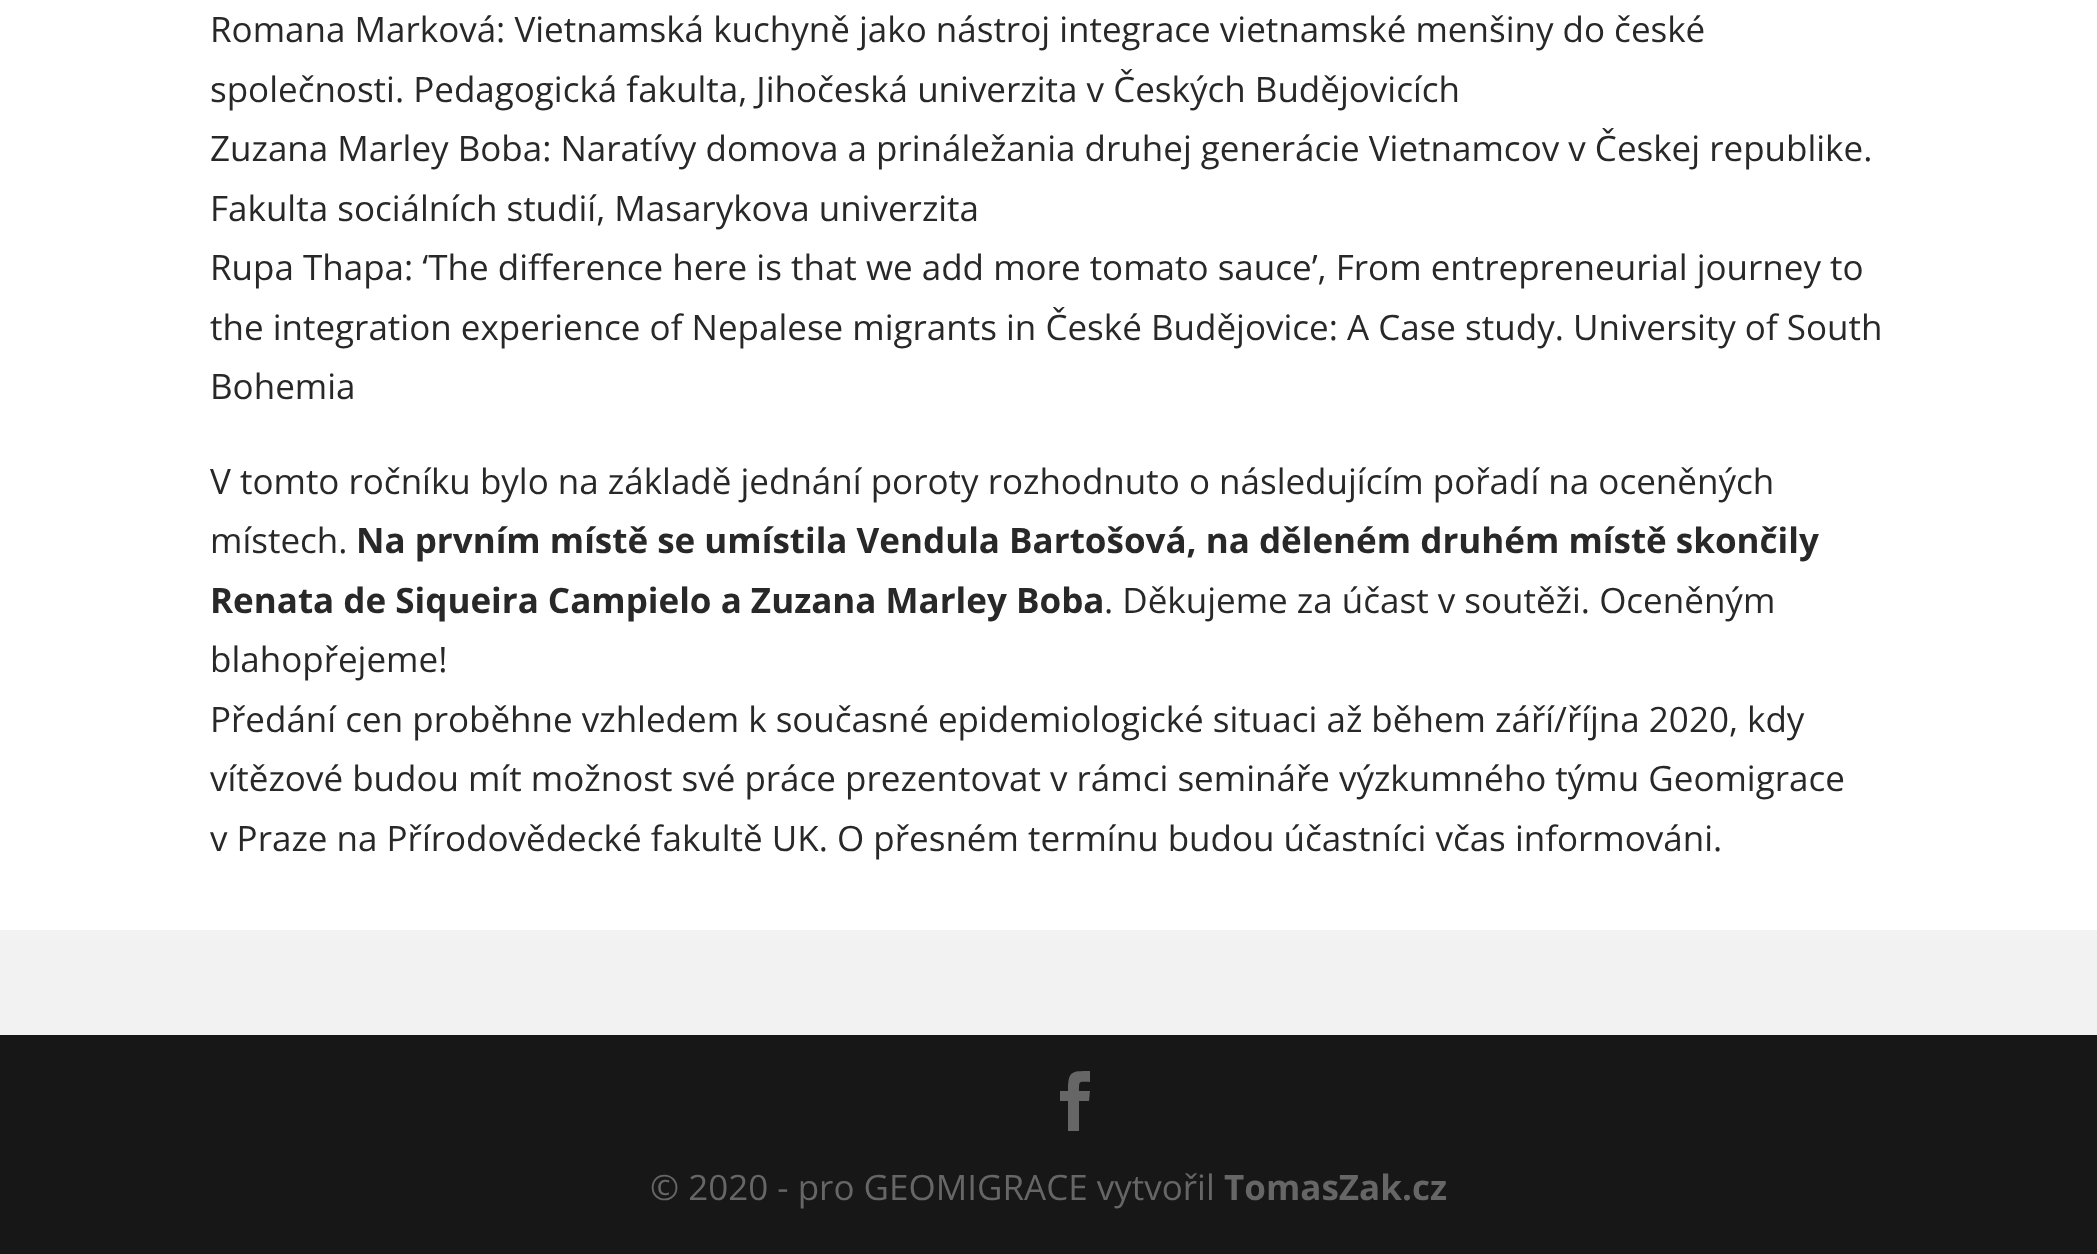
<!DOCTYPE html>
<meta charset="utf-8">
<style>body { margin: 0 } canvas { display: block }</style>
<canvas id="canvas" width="2097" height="1254"></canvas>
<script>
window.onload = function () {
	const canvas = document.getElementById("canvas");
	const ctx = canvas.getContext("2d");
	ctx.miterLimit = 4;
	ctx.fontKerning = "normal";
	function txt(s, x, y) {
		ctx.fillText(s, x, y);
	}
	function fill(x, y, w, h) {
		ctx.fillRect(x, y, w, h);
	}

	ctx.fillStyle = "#F2F2F2";
	fill(0, 0, 2097, 1254);
	ctx.fillStyle = "#FFFFFF";
	fill(0, 0, 2097, 930);
	ctx.fillStyle = "#171717";
	fill(0, 1035, 2097, 219);
	ctx.fillStyle = "#666666";
	ctx.beginPath();
	ctx.moveTo(1068, 1131);
	ctx.lineTo(1079, 1131);
	ctx.lineTo(1079, 1101);
	ctx.lineTo(1089, 1101);
	ctx.lineTo(1090, 1091);
	ctx.lineTo(1079, 1091);
	ctx.bezierCurveTo(1079, 1080, 1079, 1082, 1090, 1082);
	ctx.lineTo(1090, 1071);
	ctx.bezierCurveTo(1071, 1071, 1068, 1071, 1068, 1091);
	ctx.lineTo(1060, 1091);
	ctx.lineTo(1060, 1101);
	ctx.lineTo(1068, 1101);
	ctx.closePath();
	ctx.fill();
	ctx.font = "35px Open Sans";
	ctx.fillStyle = "#282828";
	txt("Romana Marková: Vietnamská kuchyně jako nástroj integrace vietnamské menšiny do české", 210, 42);
	txt("společnosti. Pedagogická fakulta, Jihočeská univerzita v Českých Budějovicích", 210, 102);
	txt("Zuzana Marley Boba: Naratívy domova a prináležania druhej generácie Vietnamcov v Českej republike.", 210, 161);
	txt("Fakulta sociálních studií, Masarykova univerzita", 210, 221);
	txt("Rupa Thapa: ‘The difference here is that we add more tomato sauce’, From entrepreneurial journey to", 210, 280);
	txt("the integration experience of Nepalese migrants in České Budějovice: A Case study. University of South", 210, 340);
	txt("Bohemia", 210, 399);
	txt("V tomto ročníku bylo na základě jednání poroty rozhodnuto o následujícím pořadí na oceněných", 210, 494);
	txt("místech.", 210, 553);
	ctx.font = "bold 35px Open Sans";
	txt("Na prvním místě se umístila Vendula Bartošová, na děleném druhém místě skončily", 356, 553);
	txt("Renata de Siqueira Campielo a Zuzana Marley Boba", 210, 613);
	ctx.font = "35px Open Sans";
	txt(". Děkujeme za účast v soutěži. Oceněným", 1104, 613);
	txt("blahopřejeme!", 210, 672);
	txt("Předání cen proběhne vzhledem k současné epidemiologické situaci až během září/října 2020, kdy", 210, 732);
	txt("vítězové budou mít možnost své práce prezentovat v rámci semináře výzkumného týmu Geomigrace", 210, 791);
	txt("v Praze na Přírodovědecké fakultě UK. O přesném termínu budou účastníci včas informováni.", 210, 851);
	ctx.fillStyle = "#666666";
	txt("© 2020 - pro GEOMIGRACE vytvořil", 650, 1200);
	ctx.font = "bold 35px Open Sans";
	txt("TomasZak.cz", 1224, 1200);
};
</script>
